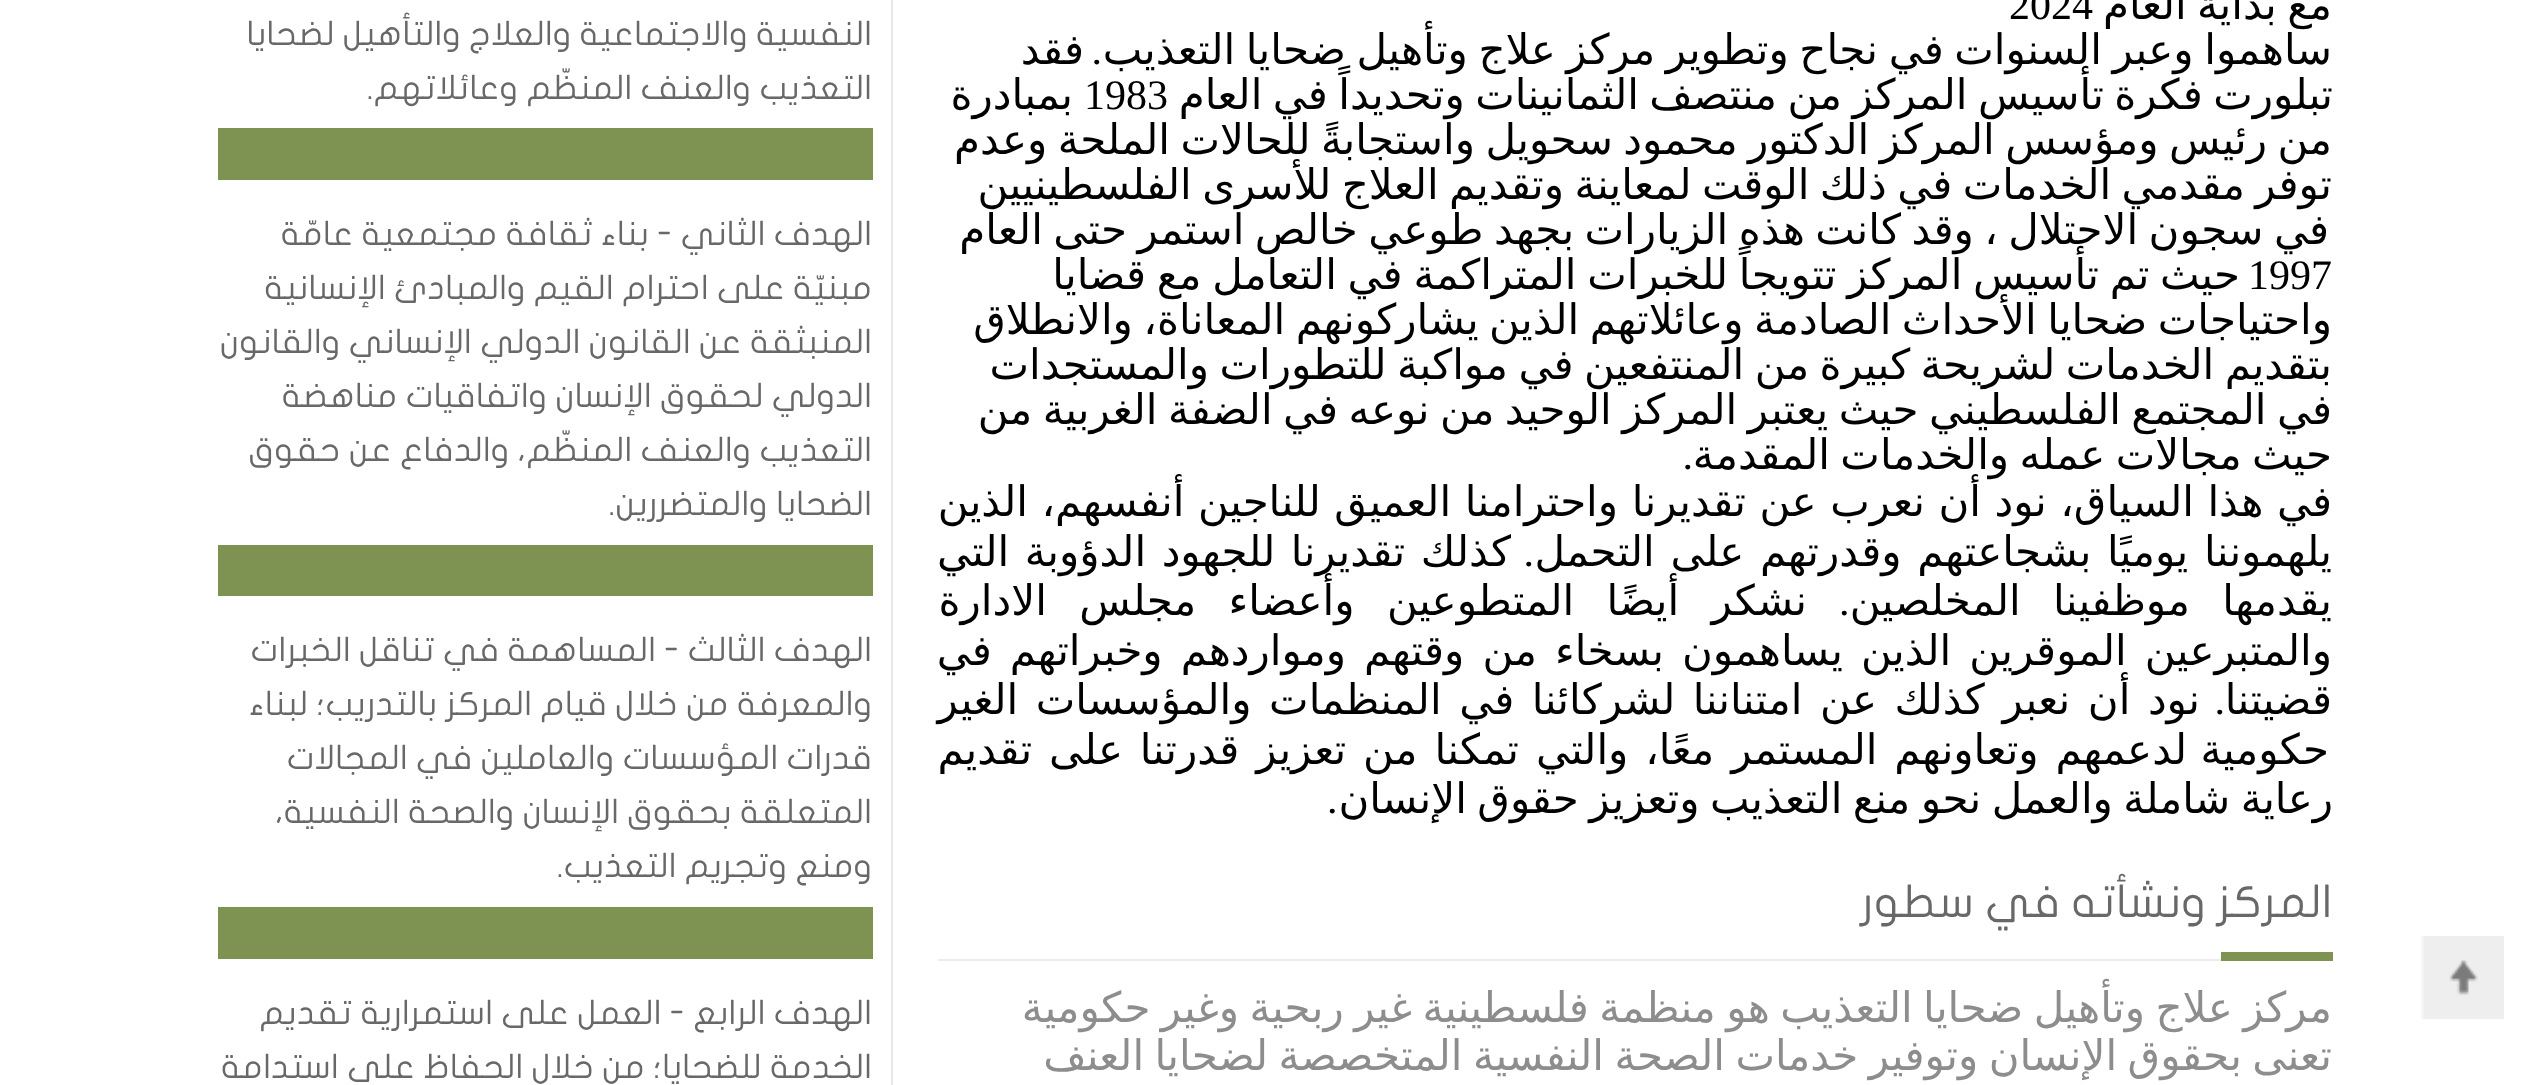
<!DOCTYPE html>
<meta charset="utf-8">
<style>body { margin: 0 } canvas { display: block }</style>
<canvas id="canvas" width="2548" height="1085"></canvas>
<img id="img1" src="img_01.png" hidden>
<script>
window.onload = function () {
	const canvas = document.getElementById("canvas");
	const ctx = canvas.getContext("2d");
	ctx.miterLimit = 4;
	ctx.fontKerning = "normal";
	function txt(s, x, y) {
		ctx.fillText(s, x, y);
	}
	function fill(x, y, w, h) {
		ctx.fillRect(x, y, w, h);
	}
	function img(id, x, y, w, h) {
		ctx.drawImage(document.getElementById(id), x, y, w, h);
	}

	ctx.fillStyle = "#FFFFFF";
	fill(0, 0, 2548, 1085);
	img("img1", 2421, 936, 83, 84);
	ctx.fillStyle = "#ECECEC";
	fill(938, 959, 1283, 2);
	ctx.fillStyle = "#7E9251";
	fill(2221, 952, 112, 9);
	ctx.fillStyle = "#E9E7E7";
	fill(891, 0, 2, 1085);
	ctx.fillStyle = "#7E9251";
	fill(218, 128, 655, 52);
	fill(218, 545, 655, 51);
	fill(218, 907, 655, 52);
	ctx.wordSpacing = "-2.9px";
	ctx.direction = "rtl";
	ctx.font = "42px DejaVu Sans";
	ctx.fillStyle = "#000000";
	txt("مع بداية العام", 2332, 19);
	ctx.wordSpacing = "0px";
	ctx.direction = "ltr";
	ctx.font = "42px Liberation Serif";
	txt("2024", 2009, 19);
	ctx.wordSpacing = "-2.75px";
	ctx.direction = "rtl";
	ctx.font = "42px DejaVu Sans";
	txt("ساهموا وعبر السنوات في نجاح وتطوير مركز علاج وتأهيل ضحايا التعذيب", 2332, 64);
	ctx.wordSpacing = "0px";
	ctx.font = "42px Liberation Serif";
	txt(".", 1102, 64);
	ctx.font = "42px DejaVu Sans";
	txt("فقد", 1084, 64);
	ctx.wordSpacing = "-2.9px";
	txt("تبلورت فكرة تأسيس المركز من منتصف الثمانينات وتحديداً في العام", 2333, 109);
	ctx.wordSpacing = "0px";
	ctx.direction = "ltr";
	ctx.font = "42px Liberation Serif";
	txt("1983", 1084, 109);
	ctx.direction = "rtl";
	ctx.font = "42px DejaVu Sans";
	txt("بمبادرة", 1073, 109);
	ctx.wordSpacing = "-2.9px";
	txt("من رئيس ومؤسس المركز الدكتور محمود سحويل واستجابةً للحالات الملحة وعدم", 2332, 154);
	txt("توفر مقدمي الخدمات في ذلك الوقت لمعاينة وتقديم العلاج للأسرى الفلسطينيين", 2332, 199);
	txt("في سجون الاحتلال ، وقد كانت هذه الزيارات بجهد طوعي خالص استمر حتى العام", 2329, 244);
	ctx.wordSpacing = "-2.6px";
	txt("حيث تم تأسيس المركز تتويجاً للخبرات المتراكمة في التعامل مع قضايا", 2240, 289);
	ctx.wordSpacing = "0px";
	ctx.direction = "ltr";
	ctx.font = "42px Liberation Serif";
	txt("1997", 2248, 289);
	ctx.wordSpacing = "-2.9px";
	ctx.direction = "rtl";
	ctx.font = "42px DejaVu Sans";
	txt("واحتياجات ضحايا الأحداث الصادمة وعائلاتهم الذين يشاركونهم المعاناة، والانطلاق", 2332, 334);
	txt("بتقديم الخدمات لشريحة كبيرة من المنتفعين في مواكبة للتطورات والمستجدات", 2332, 379);
	txt("في المجتمع الفلسطيني حيث يعتبر المركز الوحيد من نوعه في الضفة الغربية من", 2332, 424);
	txt("حيث مجالات عمله والخدمات المقدمة", 2332, 469);
	ctx.wordSpacing = "0px";
	ctx.font = "42px Liberation Serif";
	txt(".", 1693, 469);
	ctx.wordSpacing = "0.25px";
	ctx.font = "42px DejaVu Sans";
	txt("في هذا السياق، نود أن نعرب عن تقديرنا واحترامنا العميق للناجين أنفسهم، الذين", 2332, 516);
	ctx.wordSpacing = "2.25px";
	txt("يلهموننا يوميًا بشجاعتهم وقدرتهم على التحمل", 2332, 566);
	ctx.wordSpacing = "0px";
	ctx.font = "42px Liberation Serif";
	txt(".", 1534, 566);
	ctx.wordSpacing = "2.25px";
	ctx.font = "42px DejaVu Sans";
	txt("كذلك تقديرنا للجهود الدؤوبة التي", 1511, 566);
	ctx.wordSpacing = "19px";
	txt("يقدمها موظفينا المخلصين", 2332, 615);
	ctx.wordSpacing = "0px";
	ctx.direction = "ltr";
	ctx.font = "42px Liberation Serif";
	txt(".", 1839, 615);
	ctx.wordSpacing = "19px";
	ctx.direction = "rtl";
	ctx.font = "42px DejaVu Sans";
	txt("نشكر أيضًا المتطوعين وأعضاء مجلس الادارة", 1807, 615);
	ctx.wordSpacing = "4.75px";
	txt("والمتبرعين الموقرين الذين يساهمون بسخاء من وقتهم ومواردهم وخبراتهم في", 2332, 665);
	ctx.wordSpacing = "0px";
	txt("قضيتنا", 2332, 714);
	ctx.font = "42px Liberation Serif";
	txt(".", 2225, 714);
	ctx.wordSpacing = "4.25px";
	ctx.font = "42px DejaVu Sans";
	txt("نود أن نعبر كذلك عن امتناننا لشركائنا في المنظمات والمؤسسات الغير", 2200, 714);
	ctx.wordSpacing = "0px";
	txt("حكومية", 2329, 764);
	ctx.wordSpacing = "3.5px";
	txt("لدعمهم وتعاونهم المستمر معًا، والتي تمكنا من تعزيز قدرتنا على تقديم", 2187, 764);
	ctx.wordSpacing = "-2.9px";
	txt("رعاية شاملة والعمل نحو منع التعذيب وتعزيز حقوق الإنسان", 2333, 813);
	ctx.wordSpacing = "0px";
	ctx.direction = "ltr";
	ctx.font = "42px Liberation Serif";
	txt(".", 1327, 813);
	ctx.direction = "rtl";
	ctx.font = "45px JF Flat";
	ctx.fillStyle = "#686868";
	txt("المركز ونشأته في سطور", 2332, 917);
	ctx.wordSpacing = "-2.9px";
	ctx.font = "42px DejaVu Sans";
	ctx.fillStyle = "#8D8D8D";
	txt("مركز علاج وتأهيل ضحايا التعذيب", 2332, 1022);
	txt("هو منظمة فلسطينية غير ربحية وغير حكومية", 1770, 1022);
	txt("تعنى بحقوق الإنسان وتوفير خدمات الصحة النفسية المتخصصة لضحايا العنف", 2332, 1070);
	ctx.wordSpacing = "0px";
	ctx.font = "33.75px JF Flat";
	ctx.fillStyle = "#686868";
	txt("النفسية والاجتماعية والعلاج والتأهيل لضحايا", 872, 45);
	txt("التعذيب والعنف المنظّم وعائلاتهم.", 872, 99);
	txt("الهدف الثاني - بناء ثقافة مجتمعية عامّة", 872, 245);
	txt("مبنيّة على احترام القيم والمبادئ الإنسانية", 872, 299);
	txt("المنبثقة عن القانون الدولي الإنساني والقانون", 872, 353);
	txt("الدولي لحقوق الإنسان واتفاقيات مناهضة", 872, 407);
	txt("التعذيب والعنف المنظّم، والدفاع عن حقوق", 872, 461);
	txt("الضحايا والمتضررين.", 872, 515);
	txt("الهدف الثالث - المساهمة في تناقل الخبرات", 872, 661);
	txt("والمعرفة من خلال قيام المركز بالتدريب؛ لبناء", 872, 715);
	txt("قدرات المؤسسات والعاملين في المجالات", 872, 769);
	txt("المتعلقة بحقوق الإنسان والصحة النفسية،", 872, 823);
	txt("ومنع وتجريم التعذيب.", 872, 877);
	txt("الهدف الرابع - العمل على استمرارية تقديم", 872, 1024);
	txt("الخدمة للضحايا؛ من خلال الحفاظ على استدامة", 872, 1078);
};
</script>
